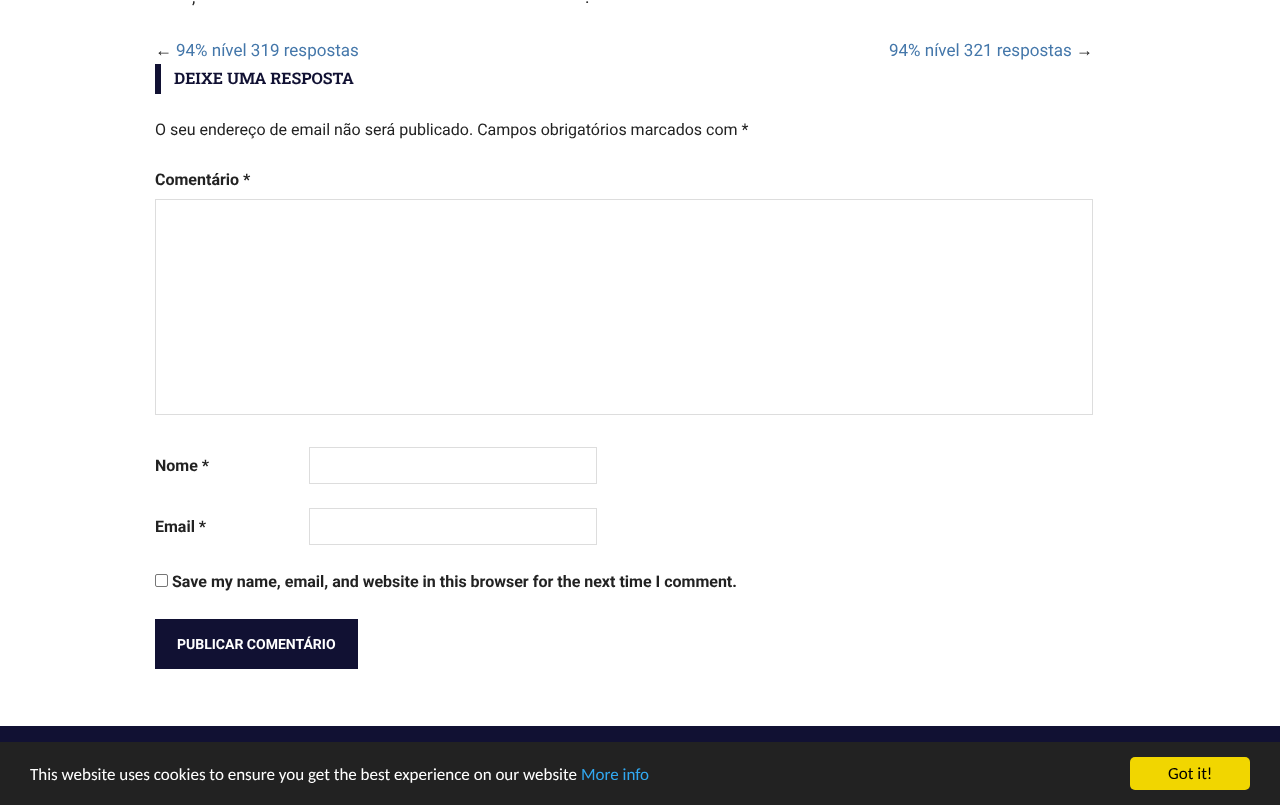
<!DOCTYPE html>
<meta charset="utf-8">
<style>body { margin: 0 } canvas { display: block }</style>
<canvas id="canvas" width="1280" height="805"></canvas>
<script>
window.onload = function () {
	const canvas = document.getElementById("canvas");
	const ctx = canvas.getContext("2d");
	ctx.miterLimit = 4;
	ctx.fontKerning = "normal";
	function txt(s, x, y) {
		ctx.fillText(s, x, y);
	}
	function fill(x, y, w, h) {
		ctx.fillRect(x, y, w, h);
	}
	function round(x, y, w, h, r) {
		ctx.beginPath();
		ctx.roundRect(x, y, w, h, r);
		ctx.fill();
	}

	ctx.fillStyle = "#FFFFFF";
	fill(0, 0, 1280, 805);
	ctx.fillStyle = "#111133";
	fill(155, 64, 6, 30);
	ctx.strokeStyle = "#DDDDDD";
	ctx.strokeRect(155.5, 199.5, 937, 215);
	ctx.strokeRect(309.5, 447.5, 287, 36);
	ctx.strokeRect(309.5, 508.5, 287, 36);
	ctx.beginPath();
	ctx.roundRect(155.5, 574.5, 12, 12, 1.5);
	ctx.strokeStyle = "#767676";
	ctx.stroke();
	fill(155, 619, 203, 50);
	fill(0, 726, 1280, 16);
	ctx.fillStyle = "#222222";
	fill(0, 742, 1280, 63);
	ctx.fillStyle = "#F1D600";
	round(1130, 757, 120, 33, 5);
	ctx.font = "17px Roboto";
	ctx.fillStyle = "#222222";
	txt(",", 192, 3);
	txt(".", 585, 3);
	ctx.font = "17px Liberation Sans";
	txt("←", 155, 56);
	ctx.font = "17px Roboto";
	ctx.fillStyle = "#4477AA";
	txt("94% nível 319 respostas", 176, 56);
	txt("94% nível 321 respostas", 889, 56);
	ctx.font = "17px Liberation Sans";
	ctx.fillStyle = "#222222";
	txt("→", 1076, 56);
	ctx.font = "bold 16px Roboto Slab";
	ctx.fillStyle = "#111133";
	txt("DEIXE UMA RESPOSTA", 174, 84);
	ctx.font = "16px Roboto";
	ctx.fillStyle = "#222222";
	txt("O seu endereço de email não será publicado. Campos obrigatórios marcados com *", 155, 135);
	ctx.font = "bold 16px Roboto";
	txt("Comentário *", 155, 185);
	txt("Nome *", 155, 471);
	txt("Email *", 155, 532);
	txt("Save my name, email, and website in this browser for the next time I comment.", 172, 587);
	ctx.font = "bold 14px Roboto";
	ctx.fillStyle = "#FFFFFF";
	txt("PUBLICAR COMENTÁRIO", 177, 649);
	ctx.font = "17px Carlito";
	txt("This website uses cookies to ensure you get the best experience on our website", 30, 780);
	ctx.fillStyle = "#31A8F0";
	txt("More info", 581, 780);
	ctx.fillStyle = "#000000";
	txt("Got it!", 1168, 779);
};
</script>
